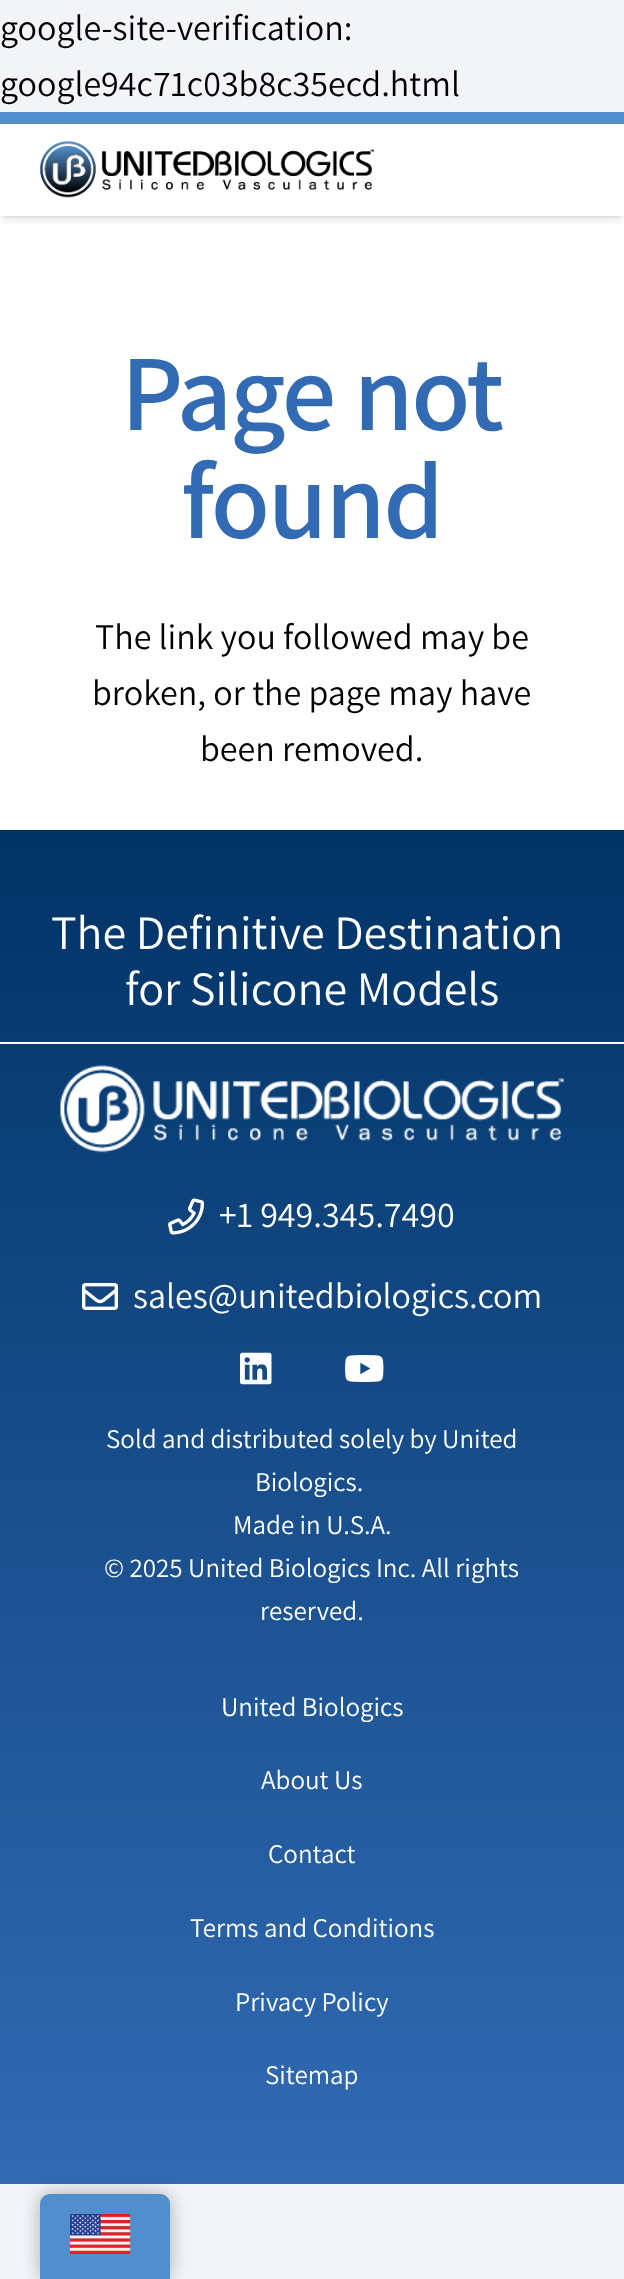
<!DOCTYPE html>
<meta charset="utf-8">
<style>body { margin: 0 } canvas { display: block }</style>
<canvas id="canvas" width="624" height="2279"></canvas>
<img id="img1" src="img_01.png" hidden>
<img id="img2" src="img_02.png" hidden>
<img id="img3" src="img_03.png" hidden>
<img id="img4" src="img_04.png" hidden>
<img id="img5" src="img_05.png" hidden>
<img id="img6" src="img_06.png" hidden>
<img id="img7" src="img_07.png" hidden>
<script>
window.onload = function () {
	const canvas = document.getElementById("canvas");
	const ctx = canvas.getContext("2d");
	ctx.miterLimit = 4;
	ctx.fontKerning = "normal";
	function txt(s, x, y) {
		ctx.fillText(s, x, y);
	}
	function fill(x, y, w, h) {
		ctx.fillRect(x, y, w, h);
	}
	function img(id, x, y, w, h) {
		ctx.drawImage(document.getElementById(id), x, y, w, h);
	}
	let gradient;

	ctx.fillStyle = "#F2F4F7";
	fill(0, 0, 624, 2279);
	ctx.fillStyle = "#FFFFFF";
	fill(0, 124, 624, 706);
	ctx.fillStyle = "#518FCC";
	fill(0, 112, 624, 12);
	ctx.save();
	ctx.beginPath();
	ctx.rect(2, 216, 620, 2);
	ctx.clip();
	ctx.fillStyle = "rgba(0, 0, 0, 0.05)";
	ctx.filter = "blur(1px)";
	ctx.beginPath();
	ctx.rect(2, 130, 620, 88);
	ctx.fill();
	ctx.filter = "none";
	ctx.restore();
	ctx.save();
	ctx.beginPath();
	ctx.rect(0, 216, 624, 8);
	ctx.clip();
	ctx.fillStyle = "rgba(0, 0, 0, 0.1)";
	ctx.filter = "blur(5px)";
	ctx.beginPath();
	ctx.rect(2, 132, 620, 88);
	ctx.fill();
	ctx.filter = "none";
	ctx.restore();
	img("img1", 39, 140, 335, 58);
	gradient = ctx.createLinearGradient(312, 2184, 312, 830);
	gradient.addColorStop(0, "#326BB4");
	gradient.addColorStop(1, "#003366");
	ctx.fillStyle = gradient;
	fill(0, 830, 624, 1354);
	ctx.fillStyle = "#FFFFFF";
	fill(0, 1042, 624, 2);
	img("img2", 60, 1065, 504, 88);
	img("img3", 168, 1198, 37, 37);
	img("img4", 82, 1283, 36, 27);
	img("img5", 240, 1352, 32, 33);
	img("img6", 345, 1355, 39, 27);
	ctx.fillStyle = "rgba(0, 0, 0, 0.3)";
	ctx.filter = "blur(9px)";
	ctx.beginPath();
	ctx.roundRect(40, 2194, 130, 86, 10);
	ctx.fill();
	ctx.filter = "none";
	ctx.fillStyle = "#518FCC";
	ctx.beginPath();
	ctx.moveTo(50, 2194);
	ctx.lineTo(160, 2194);
	ctx.bezierCurveTo(165.5, 2194, 170, 2198.5, 170, 2204);
	ctx.lineTo(170, 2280);
	ctx.lineTo(40, 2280);
	ctx.lineTo(40, 2204);
	ctx.bezierCurveTo(40, 2198.5, 44.5, 2194, 50, 2194);
	ctx.closePath();
	ctx.fill();
	img("img7", 70, 2214, 61, 40);
	ctx.font = "36px Assistant";
	ctx.fillStyle = "#000000";
	txt("google-site-verification:", 0, 40);
	txt("google94c71c03b8c35ecd.html", 0, 96);
	ctx.letterSpacing = "-2.25px";
	ctx.font = "600 108.5px Assistant";
	ctx.fillStyle = "#326BB4";
	txt("Page not", 121, 430);
	txt("found", 181, 538);
	ctx.letterSpacing = "0px";
	ctx.font = "36px Assistant";
	ctx.fillStyle = "#000000";
	txt("The link you followed may be", 95, 649);
	txt("broken, or the page may have", 92, 705);
	txt("been removed.", 200, 761);
	ctx.font = "48px Assistant";
	ctx.fillStyle = "#FFFFFF";
	txt("The Definitive Destination", 51, 949);
	txt("for Silicone Models", 125, 1005);
	ctx.font = "36px Assistant";
	txt("+1 949.345.7490", 219, 1227);
	txt("sales@unitedbiologics.com", 133, 1308);
	ctx.font = "27px Assistant";
	txt("Sold and distributed solely by United", 106, 1448);
	txt("Biologics.", 255, 1491);
	txt("Made in U.S.A.", 233, 1534);
	txt("© 2025 United Biologics Inc. All rights", 104, 1577);
	txt("reserved.", 260, 1620);
	txt("United Biologics", 221, 1716);
	txt("About Us", 261, 1789);
	txt("Contact", 268, 1863);
	txt("Terms and Conditions", 190, 1937);
	txt("Privacy Policy", 235, 2011);
	txt("Sitemap", 265, 2084);
};
</script>
